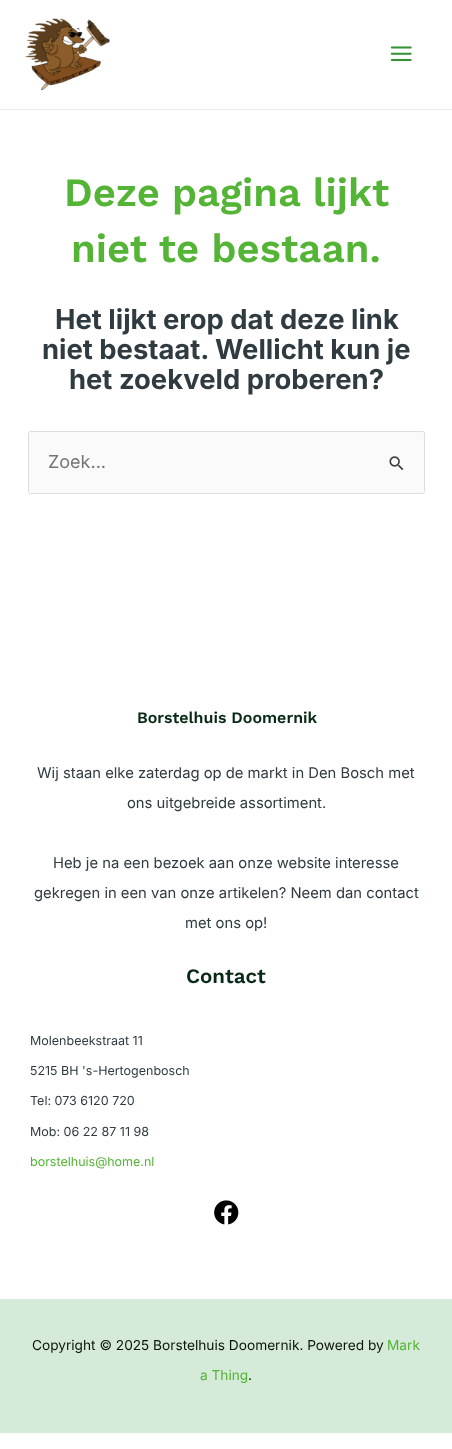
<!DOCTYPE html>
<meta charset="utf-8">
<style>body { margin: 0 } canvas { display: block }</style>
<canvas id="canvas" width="452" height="1449"></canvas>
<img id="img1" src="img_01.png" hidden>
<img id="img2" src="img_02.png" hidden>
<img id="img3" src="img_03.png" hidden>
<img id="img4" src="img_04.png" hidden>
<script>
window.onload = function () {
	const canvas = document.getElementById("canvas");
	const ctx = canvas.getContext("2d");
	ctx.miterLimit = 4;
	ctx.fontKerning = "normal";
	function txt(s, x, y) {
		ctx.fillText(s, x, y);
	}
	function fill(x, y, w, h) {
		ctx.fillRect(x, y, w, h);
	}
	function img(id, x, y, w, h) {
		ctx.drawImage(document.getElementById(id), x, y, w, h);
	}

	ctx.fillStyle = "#FFFFFF";
	fill(0, 0, 452, 1449);
	ctx.fillStyle = "#EAEAEA";
	fill(0, 109, 452, 1);
	img("img1", 25, 18, 85, 72);
	img("img2", 390, 46, 22, 16);
	ctx.fillStyle = "#FAFAFA";
	ctx.beginPath();
	ctx.roundRect(28.5, 431.5, 396, 62, 2);
	ctx.fill();
	ctx.strokeStyle = "#DDDDDD";
	ctx.stroke();
	img("img3", 389, 456, 15, 14);
	img("img4", 214, 1200, 25, 25);
	ctx.fillStyle = "#D5EAD8";
	fill(0, 1299, 452, 134);
	ctx.font = "600 40px Work Sans";
	ctx.fillStyle = "#54B435";
	txt("Deze pagina lijkt", 64, 206);
	txt("niet te bestaan.", 71, 262);
	ctx.font = "bold 27.4px Inter";
	ctx.fillStyle = "#2F3B40";
	txt("Het lijkt erop dat deze link", 55, 329);
	txt("niet bestaat. Wellicht kun je", 42, 359);
	txt("het zoekveld proberen?", 69, 389);
	ctx.font = "18px Inter";
	ctx.fillStyle = "#757575";
	txt("Zoek...", 48, 468);
	ctx.font = "600 16px Work Sans";
	ctx.fillStyle = "#092917";
	txt("Borstelhuis Doomernik", 137, 723);
	ctx.font = "14.8px Inter";
	ctx.fillStyle = "#2F3B40";
	txt("Wij staan elke zaterdag op de markt in Den Bosch met", 37, 778);
	txt("ons uitgebreide assortiment.", 127, 808);
	txt("Heb je na een bezoek aan onze website interesse", 53, 868);
	txt("gekregen in een van onze artikelen? Neem dan contact", 34, 898);
	txt("met ons op!", 185, 928);
	ctx.font = "600 20.5px Work Sans";
	ctx.fillStyle = "#092917";
	txt("Contact", 186, 983);
	ctx.font = "12.5px Inter";
	ctx.fillStyle = "#2F3B40";
	txt("Molenbeekstraat 11", 30, 1045);
	txt("5215 BH 's-Hertogenbosch", 30, 1075);
	txt("Tel: 073 6120 720", 30, 1105);
	txt("Mob: 06 22 87 11 98", 30, 1136);
	ctx.fillStyle = "#54B435";
	txt("borstelhuis@home.nl", 30, 1166);
	ctx.font = "13.7px Inter";
	ctx.fillStyle = "#0C1406";
	txt("Copyright © 2025 Borstelhuis Doomernik. Powered by", 32, 1350);
	ctx.fillStyle = "#54B435";
	txt("Mark", 387, 1350);
	txt("a Thing", 200, 1380);
	ctx.fillStyle = "#0C1406";
	txt(".", 248, 1380);
};
</script>
